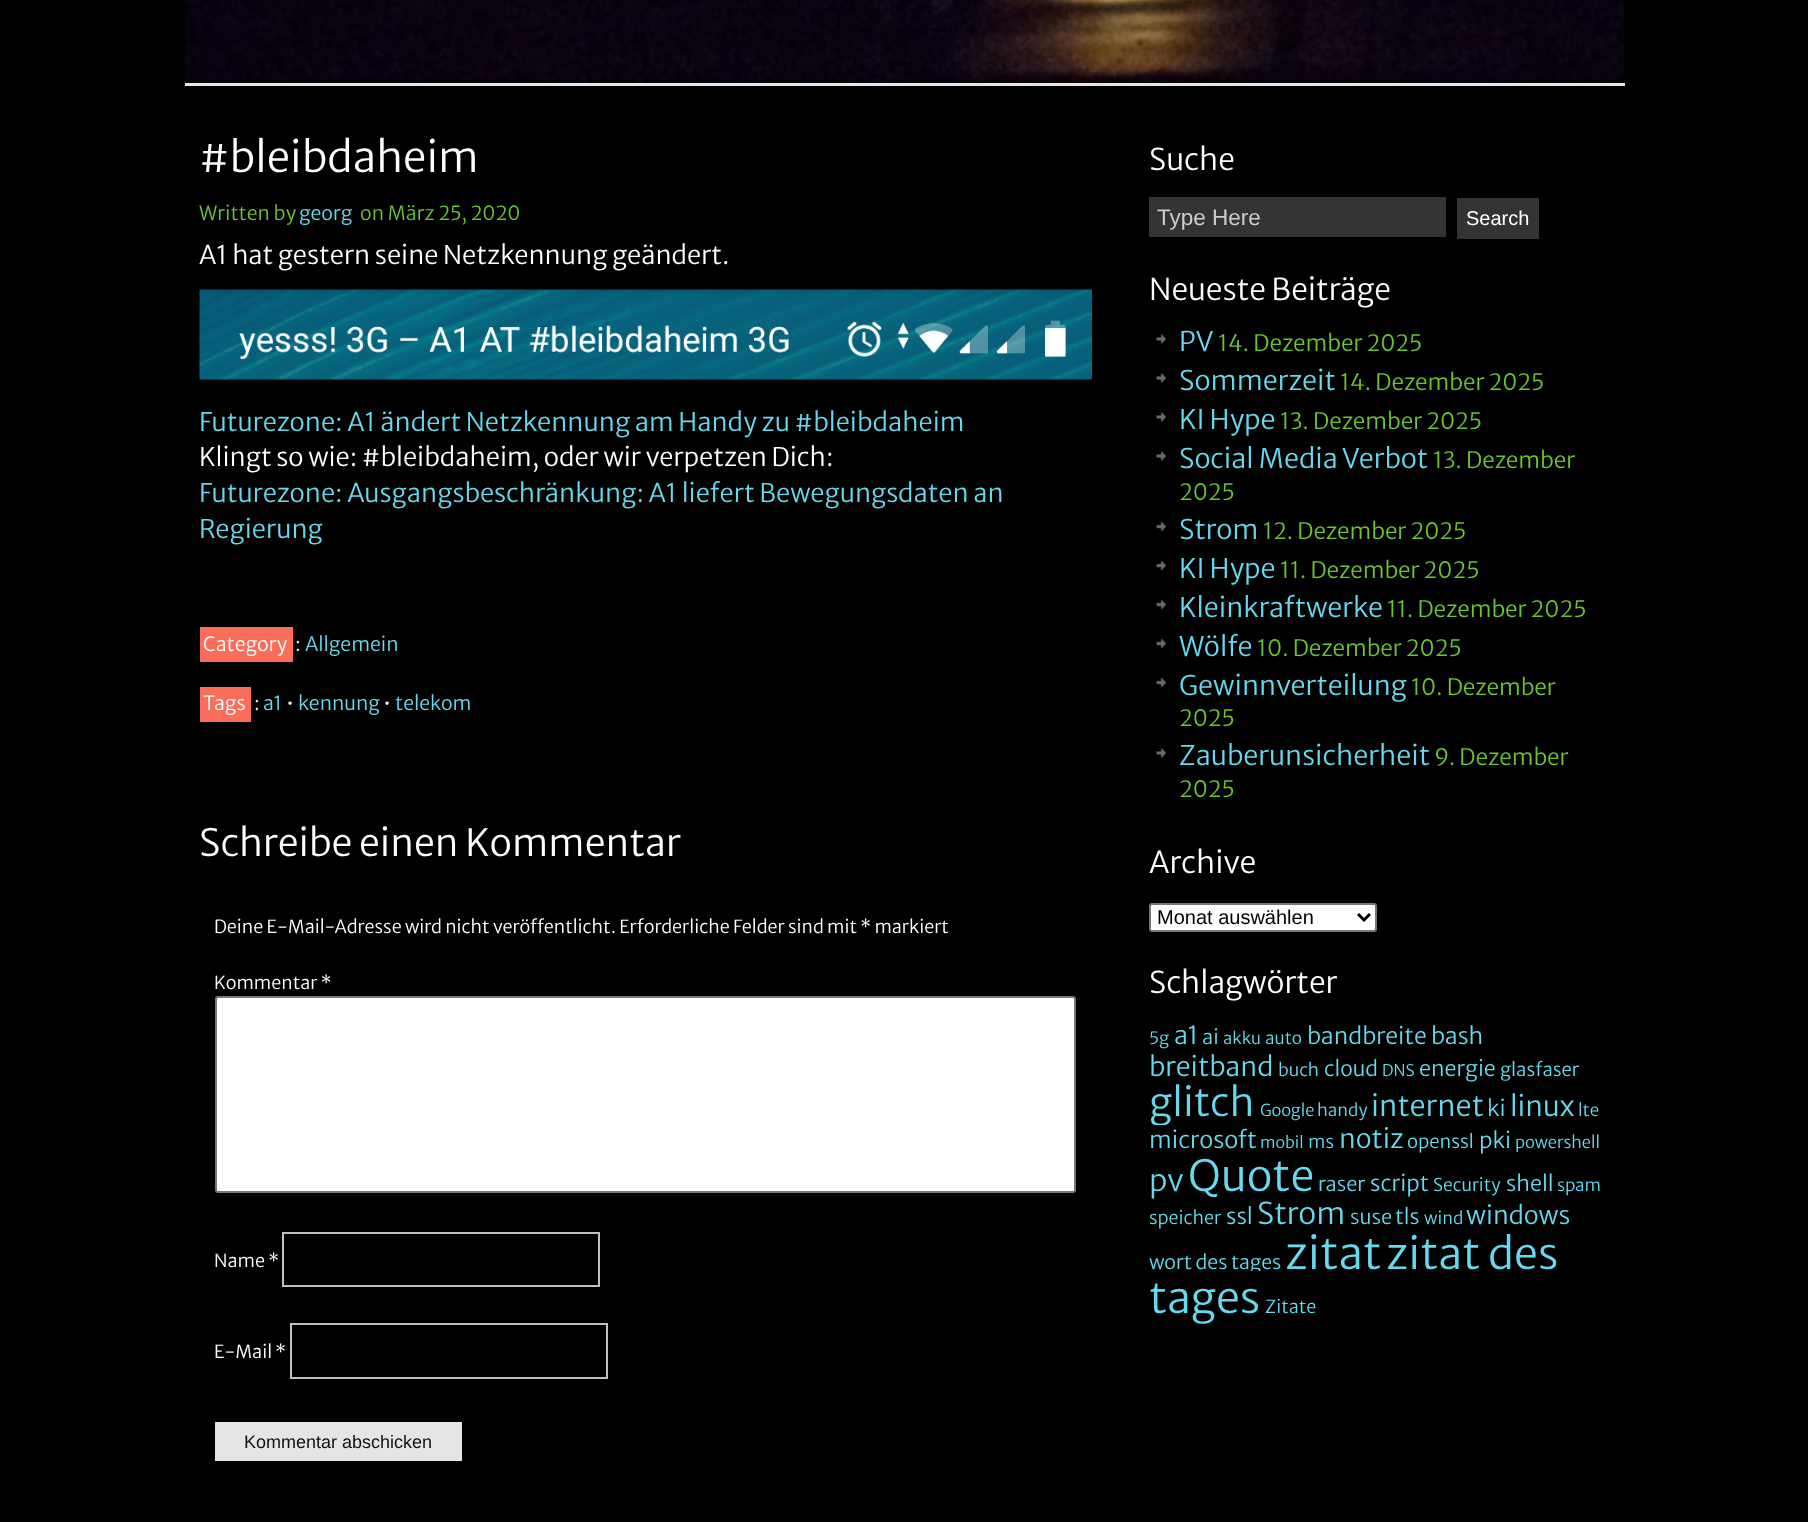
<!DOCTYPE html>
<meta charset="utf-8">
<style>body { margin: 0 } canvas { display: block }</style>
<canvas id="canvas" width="1808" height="1522"></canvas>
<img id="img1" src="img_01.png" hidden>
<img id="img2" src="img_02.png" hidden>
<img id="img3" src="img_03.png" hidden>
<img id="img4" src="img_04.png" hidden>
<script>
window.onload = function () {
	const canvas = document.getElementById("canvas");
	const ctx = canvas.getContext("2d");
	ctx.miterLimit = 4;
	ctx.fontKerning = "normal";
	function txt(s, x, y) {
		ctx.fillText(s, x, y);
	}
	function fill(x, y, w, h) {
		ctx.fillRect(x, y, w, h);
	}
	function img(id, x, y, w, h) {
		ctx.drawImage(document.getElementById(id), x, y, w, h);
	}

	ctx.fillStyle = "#000000";
	fill(0, 0, 1808, 1522);
	img("img1", 184, 0, 1441, 83);
	ctx.fillStyle = "#E6E6E6";
	fill(185, 83, 1440, 3);
	img("img2", 199, 289, 893, 91);
	ctx.fillStyle = "#F96E5B";
	fill(200, 627, 93, 35);
	fill(200, 687, 51, 35);
	ctx.fillStyle = "#FFFFFF";
	ctx.beginPath();
	ctx.roundRect(216, 997, 859, 195, 2);
	ctx.fill();
	ctx.strokeStyle = "#767676";
	ctx.lineWidth = 2;
	ctx.stroke();
	ctx.strokeStyle = "#C0C0C0";
	ctx.strokeRect(283, 1233, 316, 53);
	ctx.strokeRect(291, 1324, 316, 54);
	ctx.fillStyle = "#E5E5E5";
	fill(215, 1422, 247, 39);
	ctx.fillStyle = "#333333";
	fill(1149, 197, 297, 40);
	fill(1457, 198, 82, 41);
	img("img3", 1156, 334, 10, 10);
	img("img3", 1156, 373, 10, 10);
	img("img3", 1156, 412, 10, 10);
	img("img3", 1156, 451, 10, 10);
	img("img4", 1156, 521, 10, 11);
	img("img4", 1156, 560, 10, 11);
	img("img4", 1156, 599, 10, 11);
	img("img4", 1156, 638, 10, 11);
	img("img4", 1156, 677, 10, 11);
	img("img3", 1156, 748, 10, 10);
	ctx.fillStyle = "#FFFFFF";
	ctx.beginPath();
	ctx.roundRect(1150, 904, 226, 27, 2);
	ctx.fill();
	ctx.strokeStyle = "#767676";
	ctx.stroke();
	ctx.beginPath();
	ctx.moveTo(1358, 914);
	ctx.lineTo(1364, 920);
	ctx.lineTo(1370, 914);
	ctx.strokeStyle = "#000000";
	ctx.lineWidth = 3;
	ctx.stroke();
	ctx.font = "300 42px Merriweather Sans";
	txt("#bleibdaheim", 199, 172);
	ctx.font = "300 19.5px Merriweather Sans";
	ctx.fillStyle = "#6AC62E";
	txt("Written by", 199, 220);
	ctx.fillStyle = "#66D9EF";
	txt("georg", 299, 220);
	ctx.fillStyle = "#6AC62E";
	txt("on März 25, 2020", 360, 220);
	ctx.font = "300 25.5px Merriweather Sans";
	ctx.fillStyle = "#FFFFFF";
	txt("A1 hat gestern seine Netzkennung geändert.", 199, 264);
	ctx.fillStyle = "#66D9EF";
	txt("Futurezone: A1 ändert Netzkennung am Handy zu #bleibdaheim", 199, 431);
	ctx.fillStyle = "#FFFFFF";
	txt("Klingt so wie: #bleibdaheim, oder wir verpetzen Dich:", 199, 466);
	ctx.fillStyle = "#66D9EF";
	txt("Futurezone: Ausgangsbeschränkung: A1 liefert Bewegungsdaten an", 199, 502);
	txt("Regierung", 199, 538);
	ctx.font = "300 19.5px Merriweather Sans";
	ctx.fillStyle = "#FFFFFF";
	txt("Category", 203, 651);
	txt(":", 295, 651);
	ctx.fillStyle = "#66D9EF";
	txt("Allgemein", 305, 651);
	ctx.fillStyle = "#FFFFFF";
	txt("Tags", 203, 710);
	txt(":", 254, 710);
	ctx.fillStyle = "#66D9EF";
	txt("a1", 263, 710);
	ctx.fillStyle = "#FFFFFF";
	txt("•", 286, 710);
	ctx.fillStyle = "#66D9EF";
	txt("kennung", 298, 710);
	ctx.fillStyle = "#FFFFFF";
	txt("•", 383, 710);
	ctx.fillStyle = "#66D9EF";
	txt("telekom", 395, 710);
	ctx.font = "300 37.5px Merriweather Sans";
	ctx.fillStyle = "#FFFFFF";
	txt("Schreibe einen Kommentar", 199, 856);
	ctx.font = "300 18px Merriweather Sans";
	txt("Deine E-Mail-Adresse wird nicht veröffentlicht. Erforderliche Felder sind mit * markiert", 214, 933);
	txt("Kommentar *", 214, 989);
	txt("Name *", 214, 1267);
	txt("E-Mail *", 214, 1358);
	ctx.font = "18px Liberation Sans";
	ctx.fillStyle = "#111111";
	txt("Kommentar abschicken", 244, 1448);
	ctx.font = "300 30px Merriweather Sans";
	ctx.fillStyle = "#FFFFFF";
	txt("Suche", 1149, 170);
	ctx.font = "22.5px Liberation Sans";
	ctx.fillStyle = "#CCCCCC";
	txt("Type Here", 1157, 225);
	ctx.font = "20px Liberation Sans";
	ctx.fillStyle = "#FFFFFF";
	txt("Search", 1466, 225);
	ctx.font = "300 30px Merriweather Sans";
	txt("Neueste Beiträge", 1149, 300);
	ctx.font = "300 27px Merriweather Sans";
	ctx.fillStyle = "#66D9EF";
	txt("PV", 1179, 351);
	ctx.font = "300 22.5px Merriweather Sans";
	ctx.fillStyle = "#6AC62E";
	txt("14. Dezember 2025", 1218, 351);
	ctx.font = "300 27px Merriweather Sans";
	ctx.fillStyle = "#66D9EF";
	txt("Sommerzeit", 1179, 390);
	ctx.font = "300 22.5px Merriweather Sans";
	ctx.fillStyle = "#6AC62E";
	txt("14. Dezember 2025", 1340, 390);
	ctx.font = "300 27px Merriweather Sans";
	ctx.fillStyle = "#66D9EF";
	txt("KI Hype", 1179, 429);
	ctx.font = "300 22.5px Merriweather Sans";
	ctx.fillStyle = "#6AC62E";
	txt("13. Dezember 2025", 1280, 429);
	ctx.font = "300 27px Merriweather Sans";
	ctx.fillStyle = "#66D9EF";
	txt("Social Media Verbot", 1179, 468);
	ctx.font = "300 22.5px Merriweather Sans";
	ctx.fillStyle = "#6AC62E";
	txt("13. Dezember", 1433, 468);
	txt("2025", 1179, 500);
	ctx.font = "300 27px Merriweather Sans";
	ctx.fillStyle = "#66D9EF";
	txt("Strom", 1179, 539);
	ctx.font = "300 22.5px Merriweather Sans";
	ctx.fillStyle = "#6AC62E";
	txt("12. Dezember 2025", 1263, 539);
	ctx.font = "300 27px Merriweather Sans";
	ctx.fillStyle = "#66D9EF";
	txt("KI Hype", 1179, 578);
	ctx.font = "300 22.5px Merriweather Sans";
	ctx.fillStyle = "#6AC62E";
	txt("11. Dezember 2025", 1280, 578);
	ctx.font = "300 27px Merriweather Sans";
	ctx.fillStyle = "#66D9EF";
	txt("Kleinkraftwerke", 1179, 617);
	ctx.font = "300 22.5px Merriweather Sans";
	ctx.fillStyle = "#6AC62E";
	txt("11. Dezember 2025", 1387, 617);
	ctx.font = "300 27px Merriweather Sans";
	ctx.fillStyle = "#66D9EF";
	txt("Wölfe", 1179, 656);
	ctx.font = "300 22.5px Merriweather Sans";
	ctx.fillStyle = "#6AC62E";
	txt("10. Dezember 2025", 1257, 656);
	ctx.font = "300 27px Merriweather Sans";
	ctx.fillStyle = "#66D9EF";
	txt("Gewinnverteilung", 1179, 695);
	ctx.font = "300 22.5px Merriweather Sans";
	ctx.fillStyle = "#6AC62E";
	txt("10. Dezember", 1411, 695);
	txt("2025", 1179, 726);
	ctx.font = "300 27px Merriweather Sans";
	ctx.fillStyle = "#66D9EF";
	txt("Zauberunsicherheit", 1179, 765);
	ctx.font = "300 22.5px Merriweather Sans";
	ctx.fillStyle = "#6AC62E";
	txt("9. Dezember", 1434, 765);
	txt("2025", 1179, 797);
	ctx.font = "300 30px Merriweather Sans";
	ctx.fillStyle = "#FFFFFF";
	txt("Archive", 1149, 873);
	ctx.font = "20px Liberation Sans";
	ctx.fillStyle = "#000000";
	txt("Monat auswählen", 1157, 924);
	ctx.font = "300 30px Merriweather Sans";
	ctx.fillStyle = "#FFFFFF";
	txt("Schlagwörter", 1149, 993);
	ctx.font = "300 17px Merriweather Sans";
	ctx.fillStyle = "#66D9EF";
	txt("5g", 1149, 1044);
	ctx.font = "300 25px Merriweather Sans";
	txt("a1", 1174, 1044);
	ctx.font = "300 20px Merriweather Sans";
	txt("ai", 1202, 1044);
	ctx.font = "300 16.5px Merriweather Sans";
	txt("akku", 1223, 1044);
	ctx.font = "300 17px Merriweather Sans";
	txt("auto", 1265, 1044);
	ctx.font = "300 23px Merriweather Sans";
	txt("bandbreite", 1307, 1044);
	txt("bash", 1431, 1044);
	ctx.font = "300 26.75px Merriweather Sans";
	txt("breitband", 1149, 1076);
	ctx.font = "300 17.5px Merriweather Sans";
	txt("buch", 1278, 1076);
	ctx.font = "300 21px Merriweather Sans";
	txt("cloud", 1324, 1076);
	ctx.font = "300 16px Merriweather Sans";
	txt("DNS", 1382, 1076);
	ctx.font = "300 21.5px Merriweather Sans";
	txt("energie", 1419, 1076);
	ctx.font = "300 18.5px Merriweather Sans";
	txt("glasfaser", 1500, 1076);
	ctx.font = "300 39px Merriweather Sans";
	txt("glitch", 1149, 1116);
	ctx.font = "300 16.5px Merriweather Sans";
	txt("Google", 1260, 1116);
	ctx.font = "300 17px Merriweather Sans";
	txt("handy", 1317, 1116);
	ctx.font = "300 29px Merriweather Sans";
	txt("internet", 1371, 1116);
	ctx.font = "300 22px Merriweather Sans";
	txt("ki", 1487, 1116);
	ctx.font = "300 28px Merriweather Sans";
	txt("linux", 1510, 1116);
	ctx.font = "300 17px Merriweather Sans";
	txt("lte", 1578, 1116);
	ctx.font = "300 23.5px Merriweather Sans";
	txt("microsoft", 1149, 1148);
	ctx.fillStyle = "#000000";
	fill(1155, 1125, 11, 1);
	ctx.font = "300 16px Merriweather Sans";
	ctx.fillStyle = "#66D9EF";
	txt("mobil", 1260, 1148);
	ctx.font = "300 18px Merriweather Sans";
	txt("ms", 1308, 1148);
	ctx.font = "300 26.5px Merriweather Sans";
	txt("notiz", 1339, 1148);
	ctx.font = "300 18.5px Merriweather Sans";
	txt("openssl", 1407, 1148);
	ctx.font = "300 22px Merriweather Sans";
	txt("pki", 1479, 1148);
	ctx.font = "300 16.5px Merriweather Sans";
	txt("powershell", 1515, 1148);
	ctx.font = "300 30px Merriweather Sans";
	txt("pv", 1149, 1191);
	ctx.font = "300 43px Merriweather Sans";
	txt("Quote", 1188, 1191);
	ctx.font = "300 20px Merriweather Sans";
	txt("raser", 1318, 1191);
	ctx.font = "300 22px Merriweather Sans";
	txt("script", 1370, 1191);
	ctx.font = "300 17.5px Merriweather Sans";
	txt("Security", 1433, 1191);
	ctx.font = "300 21.5px Merriweather Sans";
	txt("shell", 1506, 1191);
	ctx.font = "300 17px Merriweather Sans";
	txt("spam", 1557, 1191);
	ctx.font = "300 18px Merriweather Sans";
	txt("speicher", 1149, 1224);
	ctx.font = "300 22px Merriweather Sans";
	txt("ssl", 1226, 1224);
	ctx.font = "300 30px Merriweather Sans";
	txt("Strom", 1257, 1224);
	ctx.font = "300 20px Merriweather Sans";
	txt("suse", 1350, 1224);
	ctx.font = "300 21px Merriweather Sans";
	txt("tls", 1395, 1224);
	ctx.font = "300 17px Merriweather Sans";
	txt("wind", 1424, 1224);
	ctx.font = "300 25px Merriweather Sans";
	txt("windows", 1466, 1224);
	ctx.font = "300 19.5px Merriweather Sans";
	txt("wort des tages", 1149, 1269);
	ctx.font = "300 44px Merriweather Sans";
	txt("zitat", 1285, 1269);
	ctx.font = "300 43px Merriweather Sans";
	txt("zitat des", 1386, 1269);
	txt("tages", 1149, 1313);
	ctx.fillStyle = "#000000";
	fill(1251, 1271, 10, 3);
	ctx.font = "300 18px Merriweather Sans";
	ctx.fillStyle = "#66D9EF";
	txt("Zitate", 1265, 1313);
};
</script>
